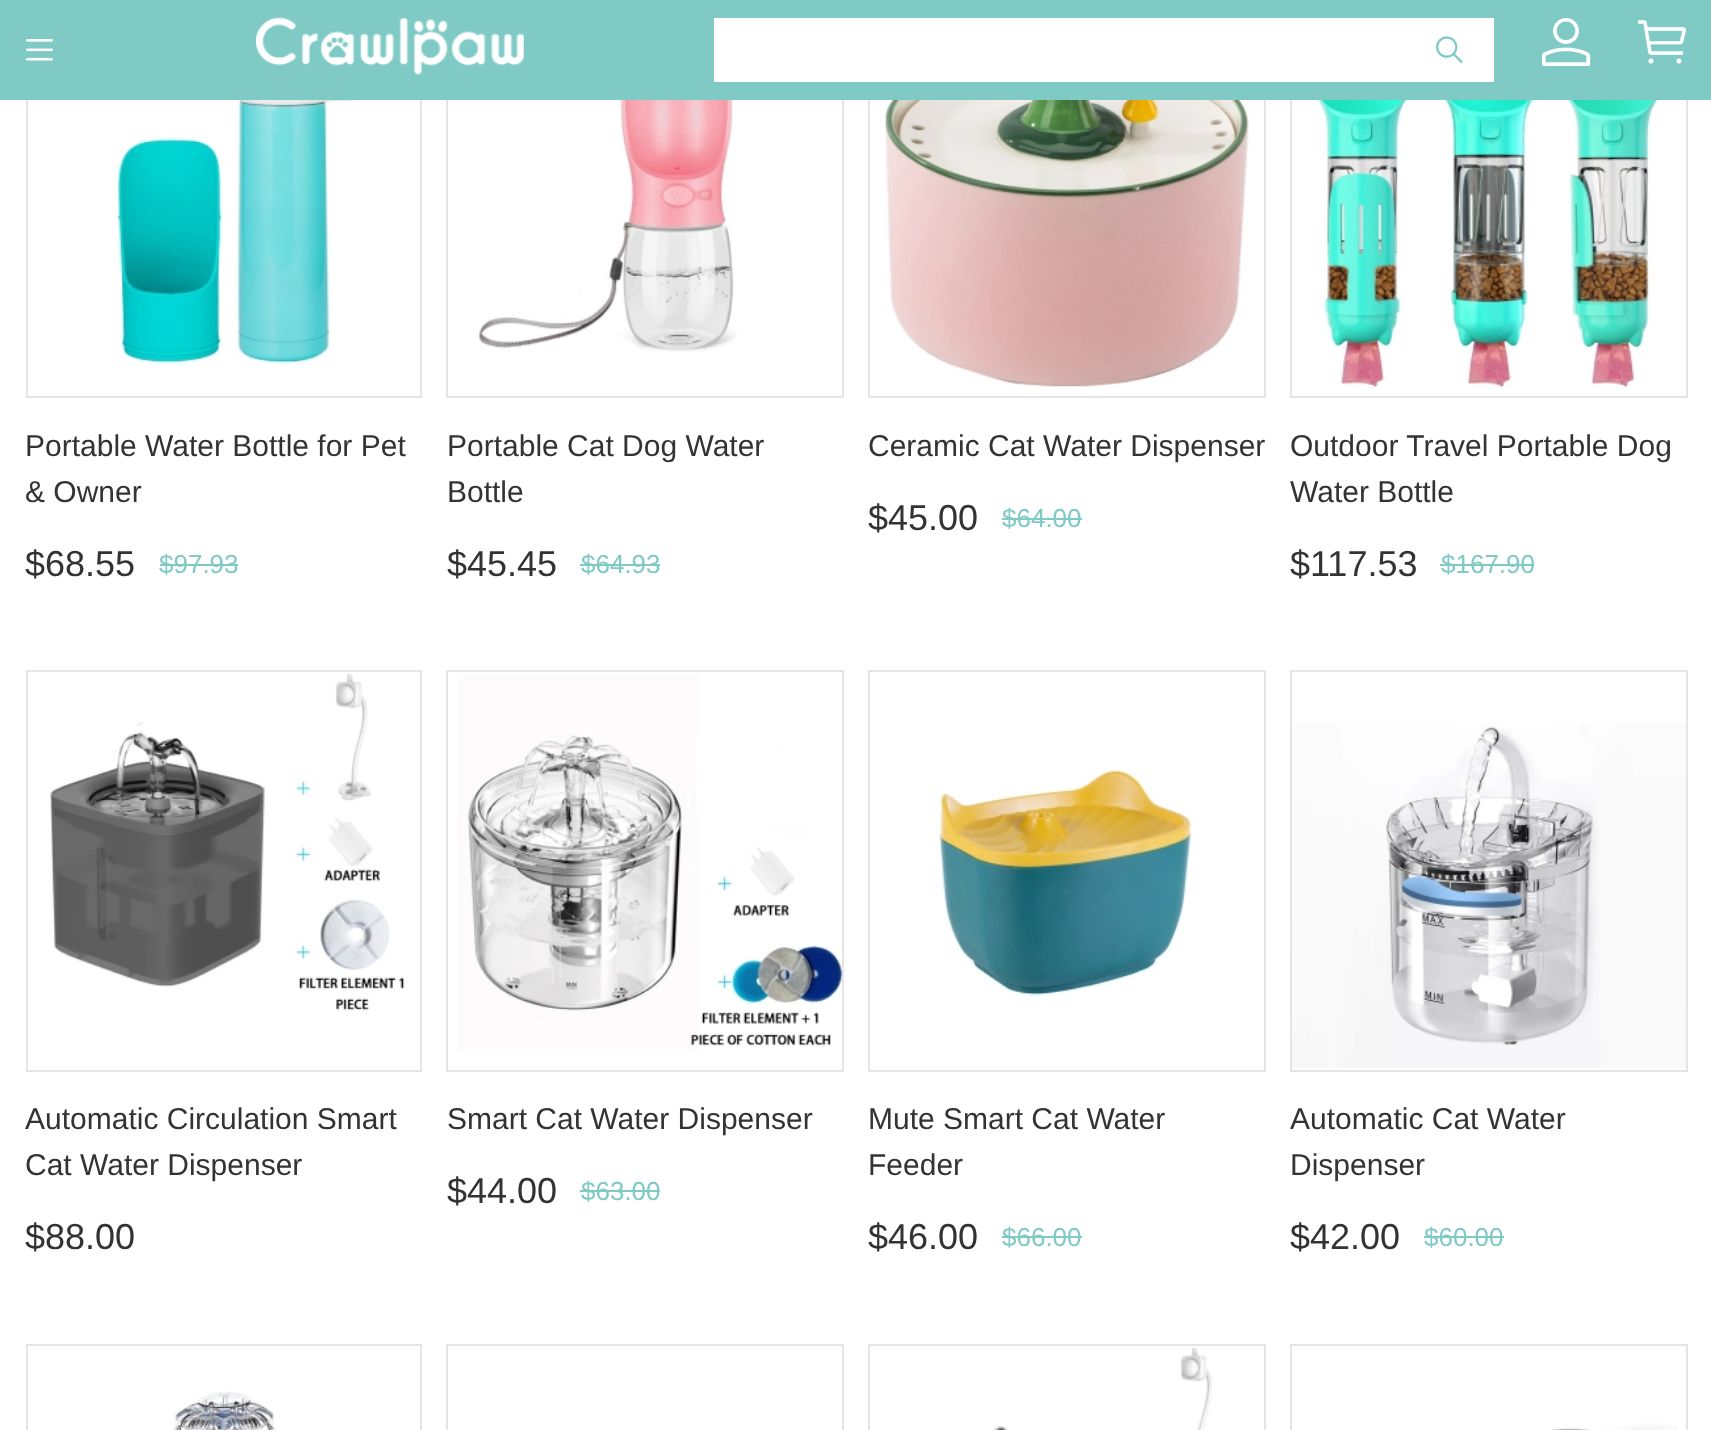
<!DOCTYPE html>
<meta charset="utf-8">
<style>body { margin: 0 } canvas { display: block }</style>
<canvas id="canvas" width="1711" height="1430"></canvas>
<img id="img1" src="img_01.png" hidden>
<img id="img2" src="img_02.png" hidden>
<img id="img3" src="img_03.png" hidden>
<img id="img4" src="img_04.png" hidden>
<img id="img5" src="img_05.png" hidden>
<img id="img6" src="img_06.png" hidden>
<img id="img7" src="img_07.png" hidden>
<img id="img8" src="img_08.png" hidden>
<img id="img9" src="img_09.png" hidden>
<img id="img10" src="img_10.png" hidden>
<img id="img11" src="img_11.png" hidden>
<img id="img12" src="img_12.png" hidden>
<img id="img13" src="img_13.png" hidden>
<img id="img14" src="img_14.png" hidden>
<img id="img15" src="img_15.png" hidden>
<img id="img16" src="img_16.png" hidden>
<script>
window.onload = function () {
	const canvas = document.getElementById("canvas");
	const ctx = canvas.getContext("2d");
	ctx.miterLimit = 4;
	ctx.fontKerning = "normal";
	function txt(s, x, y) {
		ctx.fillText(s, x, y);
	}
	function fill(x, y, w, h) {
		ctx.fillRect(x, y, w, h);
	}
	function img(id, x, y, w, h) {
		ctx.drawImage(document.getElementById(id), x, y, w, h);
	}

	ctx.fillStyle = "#FFFFFF";
	fill(0, 0, 1711, 1430);
	ctx.strokeStyle = "#E5E5E5";
	ctx.lineWidth = 2;
	ctx.strokeRect(27, -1, 394, 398);
	ctx.strokeRect(447, -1, 396, 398);
	ctx.strokeRect(869, -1, 396, 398);
	ctx.strokeRect(1291, -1, 396, 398);
	ctx.fillStyle = "#7FCAC5";
	fill(0, 0, 1711, 100);
	img("img1", 26, 39, 27, 22);
	img("img2", 256, 17, 268, 58);
	ctx.fillStyle = "#FFFFFF";
	fill(714, 18, 780, 64);
	img("img3", 1436, 36, 27, 28);
	img("img4", 1542, 18, 49, 48);
	img("img5", 1638, 20, 49, 44);
	img("img6", 115, 100, 247, 264);
	ctx.fillStyle = "#7FCAC5";
	fill(160, 564, 78, 2);
	img("img7", 478, 100, 259, 252);
	fill(580, 564, 80, 2);
	img("img8", 885, 100, 364, 287);
	fill(1002, 518, 80, 2);
	img("img9", 1308, 100, 359, 288);
	fill(1440, 564, 94, 2);
	ctx.strokeRect(27, 671, 394, 400);
	img("img10", 50, 674, 355, 337);
	ctx.strokeRect(447, 671, 396, 400);
	img("img11", 458, 674, 384, 379);
	fill(580, 1190, 80, 2);
	ctx.strokeRect(869, 671, 396, 400);
	img("img12", 938, 769, 255, 227);
	fill(1002, 1236, 80, 2);
	ctx.strokeRect(1291, 671, 396, 400);
	img("img13", 1292, 722, 394, 346);
	fill(1424, 1236, 80, 2);
	ctx.strokeRect(27, 1345, 394, 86);
	img("img14", 173, 1391, 103, 39);
	ctx.strokeRect(447, 1345, 396, 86);
	ctx.strokeRect(869, 1345, 396, 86);
	img("img15", 993, 1348, 219, 82);
	ctx.strokeRect(1291, 1345, 396, 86);
	img("img16", 1551, 1423, 127, 7);
	ctx.font = "30px Liberation Sans";
	ctx.fillStyle = "#333333";
	txt("Portable Water Bottle for Pet", 25, 456);
	txt("& Owner", 25, 502);
	ctx.font = "36px Liberation Sans";
	txt("$68.55", 25, 576);
	ctx.font = "26px Liberation Sans";
	ctx.fillStyle = "#7FCAC5";
	txt("$97.93", 159, 573);
	ctx.font = "30px Liberation Sans";
	ctx.fillStyle = "#333333";
	txt("Portable Cat Dog Water", 447, 456);
	txt("Bottle", 447, 502);
	ctx.font = "36px Liberation Sans";
	txt("$45.45", 447, 576);
	ctx.font = "26px Liberation Sans";
	ctx.fillStyle = "#7FCAC5";
	txt("$64.93", 581, 573);
	ctx.font = "30px Liberation Sans";
	ctx.fillStyle = "#333333";
	txt("Ceramic Cat Water Dispenser", 868, 456);
	ctx.font = "36px Liberation Sans";
	txt("$45.00", 868, 530);
	ctx.font = "26px Liberation Sans";
	ctx.fillStyle = "#7FCAC5";
	txt("$64.00", 1002, 527);
	ctx.font = "30px Liberation Sans";
	ctx.fillStyle = "#333333";
	txt("Outdoor Travel Portable Dog", 1290, 456);
	txt("Water Bottle", 1290, 502);
	ctx.font = "36px Liberation Sans";
	txt("$117.53", 1290, 576);
	ctx.font = "26px Liberation Sans";
	ctx.fillStyle = "#7FCAC5";
	txt("$167.90", 1441, 573);
	ctx.font = "30px Liberation Sans";
	ctx.fillStyle = "#333333";
	txt("Automatic Circulation Smart", 25, 1129);
	txt("Cat Water Dispenser", 25, 1175);
	ctx.font = "36px Liberation Sans";
	txt("$88.00", 25, 1249);
	ctx.font = "30px Liberation Sans";
	txt("Smart Cat Water Dispenser", 447, 1129);
	ctx.font = "36px Liberation Sans";
	txt("$44.00", 447, 1203);
	ctx.font = "26px Liberation Sans";
	ctx.fillStyle = "#7FCAC5";
	txt("$63.00", 581, 1200);
	ctx.font = "30px Liberation Sans";
	ctx.fillStyle = "#333333";
	txt("Mute Smart Cat Water", 868, 1129);
	txt("Feeder", 868, 1175);
	ctx.font = "36px Liberation Sans";
	txt("$46.00", 868, 1249);
	ctx.font = "26px Liberation Sans";
	ctx.fillStyle = "#7FCAC5";
	txt("$66.00", 1002, 1246);
	ctx.font = "30px Liberation Sans";
	ctx.fillStyle = "#333333";
	txt("Automatic Cat Water", 1290, 1129);
	txt("Dispenser", 1290, 1175);
	ctx.font = "36px Liberation Sans";
	txt("$42.00", 1290, 1249);
	ctx.font = "26px Liberation Sans";
	ctx.fillStyle = "#7FCAC5";
	txt("$60.00", 1424, 1246);
};
</script>
